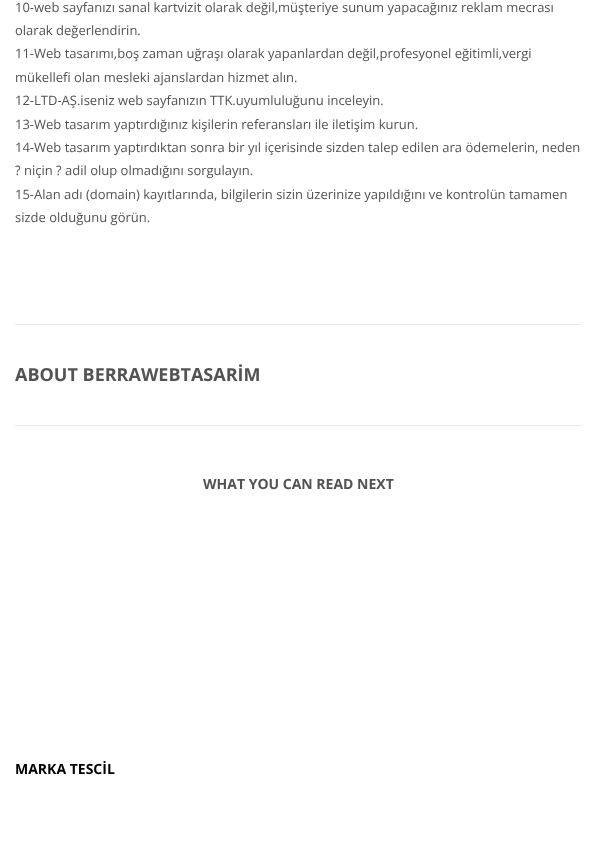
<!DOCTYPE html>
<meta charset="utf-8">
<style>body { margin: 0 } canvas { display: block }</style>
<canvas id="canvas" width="597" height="863"></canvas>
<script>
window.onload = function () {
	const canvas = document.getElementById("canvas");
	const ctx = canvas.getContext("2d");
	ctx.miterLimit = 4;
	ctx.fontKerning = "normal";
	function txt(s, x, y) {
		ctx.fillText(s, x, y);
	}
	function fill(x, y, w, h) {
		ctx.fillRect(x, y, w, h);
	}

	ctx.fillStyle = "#FFFFFF";
	fill(0, 0, 597, 863);
	ctx.fillStyle = "#E9E9E9";
	fill(15, 324, 567, 1);
	fill(15, 425, 567, 1);
	ctx.font = "13px Open Sans";
	ctx.fillStyle = "#535353";
	txt("10-web sayfanızı sanal kartvizit olarak değil,müşteriye sunum yapacağınız reklam mecrası", 15, 12);
	txt("olarak değerlendirin.", 15, 35);
	txt("11-Web tasarımı,boş zaman uğraşı olarak yapanlardan değil,profesyonel eğitimli,vergi", 15, 58);
	txt("mükellefi olan mesleki ajanslardan hizmet alın.", 15, 82);
	txt("12-LTD-AŞ.iseniz web sayfanızın TTK.uyumluluğunu inceleyin.", 15, 105);
	txt("13-Web tasarım yaptırdığınız kişilerin referansları ile iletişim kurun.", 15, 129);
	txt("14-Web tasarım yaptırdıktan sonra bir yıl içerisinde sizden talep edilen ara ödemelerin, neden", 15, 152);
	txt("? niçin ? adil olup olmadığını sorgulayın.", 15, 175);
	txt("15-Alan adı (domain) kayıtlarında, bilgilerin sizin üzerinize yapıldığını ve kontrolün tamamen", 15, 199);
	txt("sizde olduğunu görün.", 15, 222);
	ctx.font = "bold 18px Open Sans";
	txt("ABOUT BERRAWEBTASARİM", 15, 381);
	ctx.font = "bold 14px Open Sans";
	txt("WHAT YOU CAN READ NEXT", 203, 489);
	ctx.fillStyle = "#000000";
	txt("MARKA TESCİL", 15, 774);
};
</script>
